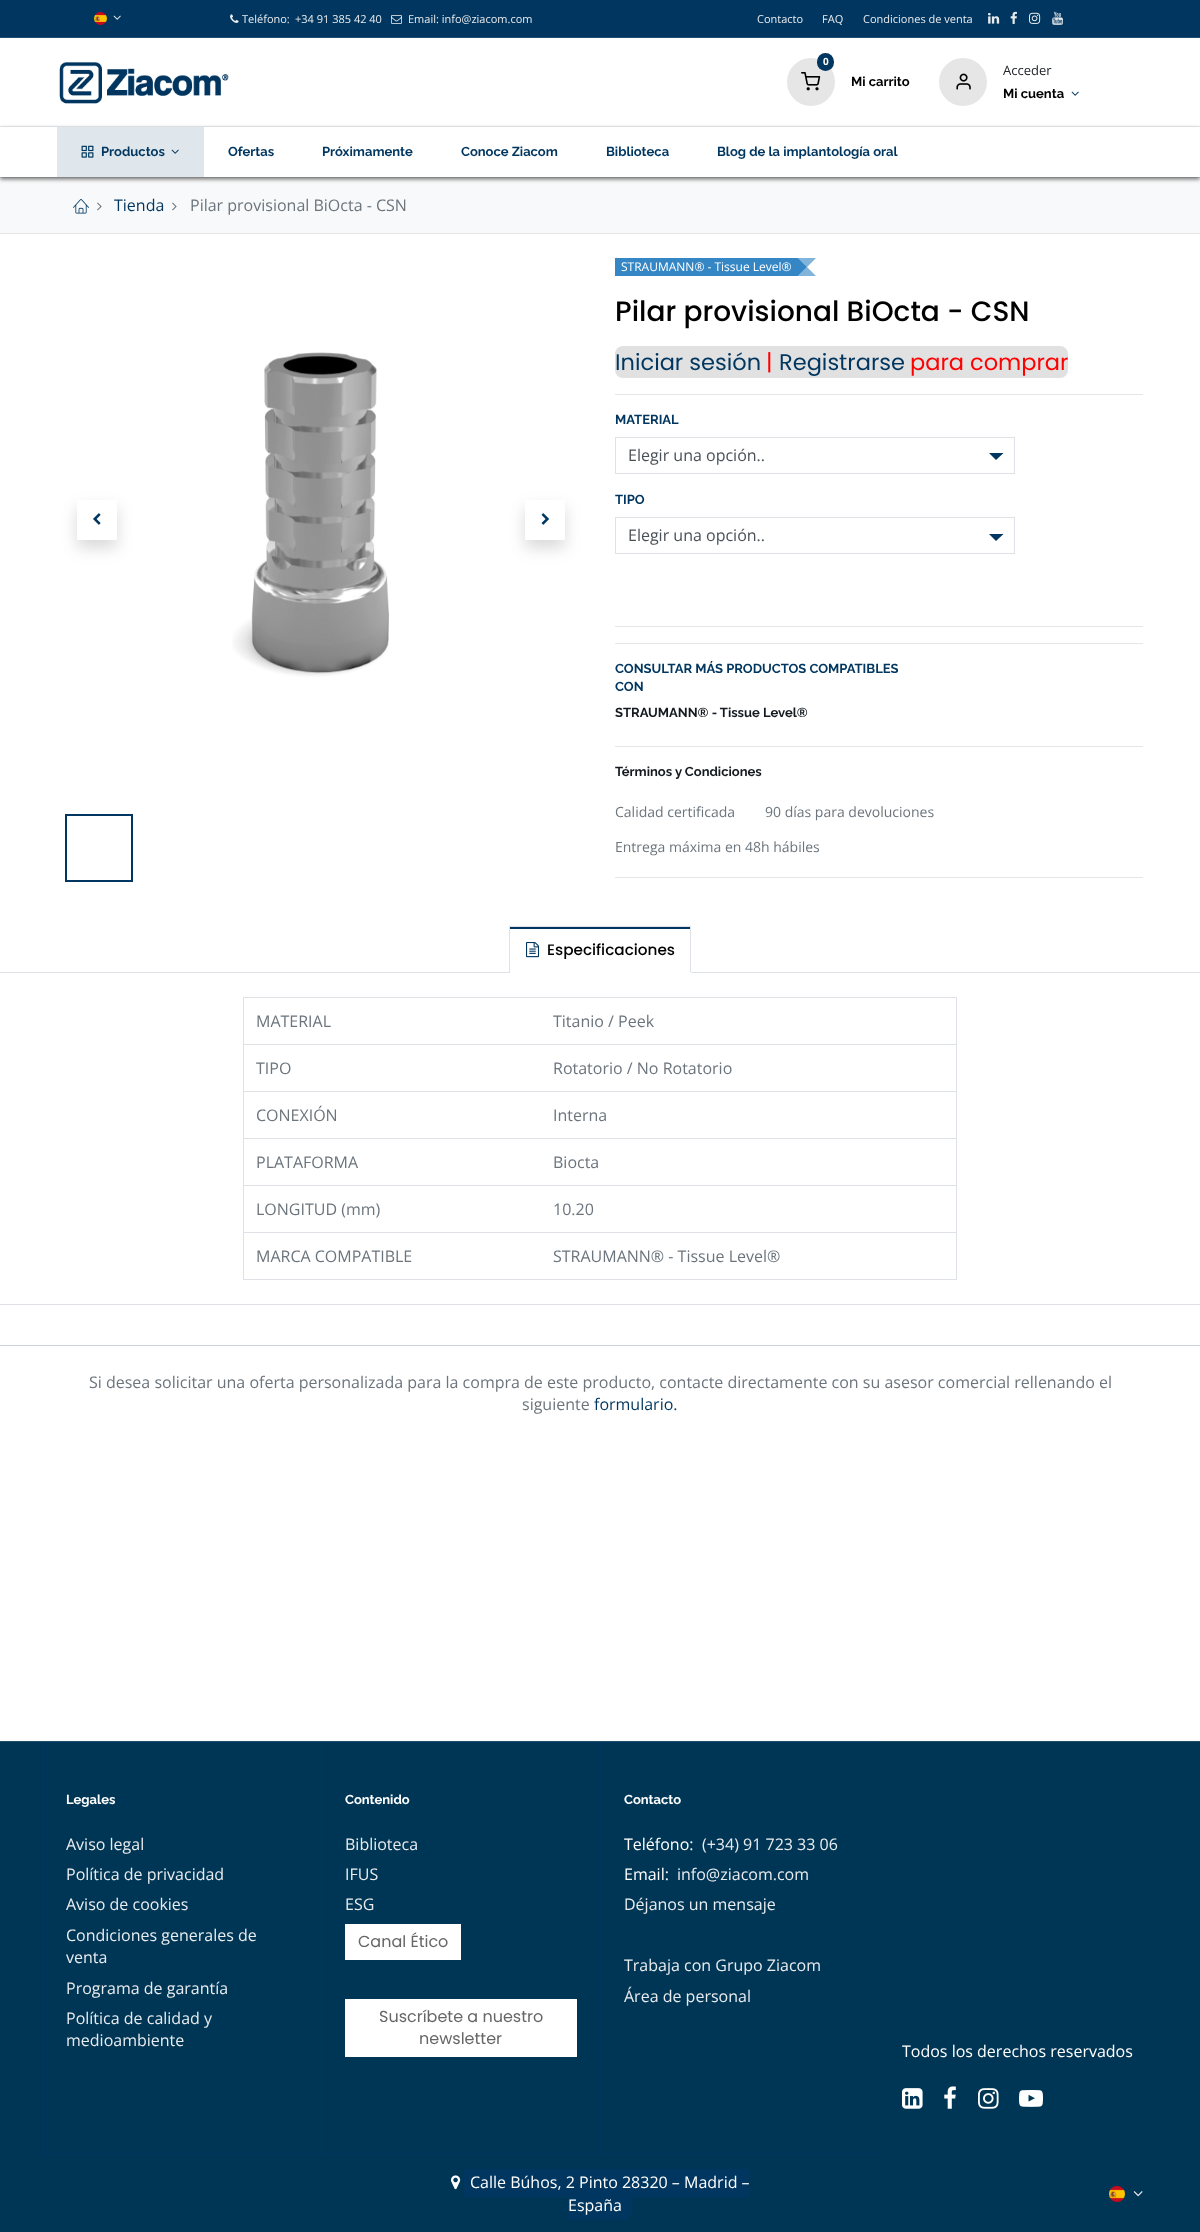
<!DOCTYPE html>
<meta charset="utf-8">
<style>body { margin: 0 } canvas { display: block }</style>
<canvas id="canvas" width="1200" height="2232"></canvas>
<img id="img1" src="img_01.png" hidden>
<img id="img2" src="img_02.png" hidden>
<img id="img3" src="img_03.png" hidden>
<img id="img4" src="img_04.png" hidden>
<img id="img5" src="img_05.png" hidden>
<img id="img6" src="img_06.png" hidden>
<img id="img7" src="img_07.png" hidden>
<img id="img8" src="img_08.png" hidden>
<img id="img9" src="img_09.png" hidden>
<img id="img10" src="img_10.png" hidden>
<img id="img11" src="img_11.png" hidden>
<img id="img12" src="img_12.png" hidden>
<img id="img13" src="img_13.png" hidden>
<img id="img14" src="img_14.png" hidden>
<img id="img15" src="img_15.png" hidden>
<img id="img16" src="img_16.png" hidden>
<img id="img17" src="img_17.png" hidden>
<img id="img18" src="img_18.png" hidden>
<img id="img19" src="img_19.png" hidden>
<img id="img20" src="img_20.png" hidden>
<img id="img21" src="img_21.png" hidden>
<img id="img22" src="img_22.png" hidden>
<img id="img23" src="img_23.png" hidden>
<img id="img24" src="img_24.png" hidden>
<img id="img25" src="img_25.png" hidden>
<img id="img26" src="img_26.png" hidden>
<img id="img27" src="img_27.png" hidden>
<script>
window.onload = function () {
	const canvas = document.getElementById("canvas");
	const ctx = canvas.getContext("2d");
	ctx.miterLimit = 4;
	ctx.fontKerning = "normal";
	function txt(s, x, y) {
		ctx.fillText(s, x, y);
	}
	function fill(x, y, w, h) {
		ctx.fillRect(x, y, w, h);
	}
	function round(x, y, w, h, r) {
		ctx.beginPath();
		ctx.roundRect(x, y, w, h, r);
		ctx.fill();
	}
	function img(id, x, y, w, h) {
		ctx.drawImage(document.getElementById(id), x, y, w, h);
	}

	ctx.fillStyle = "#FFFFFF";
	fill(0, 0, 1200, 2232);
	ctx.fillStyle = "#00365F";
	fill(0, 0, 1200, 37);
	ctx.fillStyle = "#1F4E72";
	fill(0, 37, 1200, 1);
	img("img1", 94, 12, 13, 13);
	img("img2", 113, 15, 8, 5);
	img("img3", 230, 14, 9, 9);
	img("img4", 391, 15, 11, 9);
	img("img5", 988, 12, 12, 12);
	img("img6", 1010, 11, 7, 13);
	img("img7", 1029, 12, 12, 12);
	img("img8", 1052, 11, 11, 14);
	ctx.fillStyle = "#EDEEEF";
	fill(0, 126, 1200, 1);
	img("img9", 59, 62, 170, 42);
	ctx.fillStyle = "#E6E6E6";
	ctx.beginPath();
	ctx.arc(811, 82, 24, 0, Math.PI * 2);
	ctx.fill();
	ctx.fillStyle = "#00365F";
	round(817, 53, 17, 18, 8.5);
	img("img10", 801, 72, 20, 19);
	ctx.fillStyle = "#E6E6E6";
	ctx.beginPath();
	ctx.arc(963, 82, 24, 0, Math.PI * 2);
	ctx.fill();
	img("img11", 956, 73, 15, 17);
	img("img12", 1071, 91, 8, 5);
	ctx.fillStyle = "#F8F9FA";
	fill(0, 178, 1200, 55);
	ctx.fillStyle = "#E5E5E5";
	fill(0, 177, 1200, 1);
	ctx.save();
	ctx.beginPath();
	ctx.moveTo(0, 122);
	ctx.lineTo(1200, 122);
	ctx.lineTo(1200, 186);
	ctx.lineTo(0, 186);
	ctx.closePath();
	ctx.moveTo(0, 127);
	ctx.lineTo(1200, 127);
	ctx.lineTo(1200, 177);
	ctx.lineTo(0, 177);
	ctx.closePath();
	ctx.clip("evenodd");
	ctx.fillStyle = "#666666";
	ctx.filter = "blur(2px)";
	ctx.beginPath();
	ctx.rect(0, 129, 1200, 50);
	ctx.fill();
	ctx.filter = "none";
	ctx.restore();
	ctx.fillStyle = "#E0E7EC";
	fill(57, 127, 147, 50);
	img("img13", 81, 145, 13, 13);
	img("img14", 171, 149, 8, 5);
	ctx.fillStyle = "#E5E5E5";
	fill(0, 233, 1200, 1);
	img("img15", 73, 199, 16, 15);
	img("img16", 97, 202, 5, 9);
	img("img16", 172, 202, 5, 9);
	ctx.save();
	ctx.beginPath();
	ctx.moveTo(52, 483);
	ctx.lineTo(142, 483);
	ctx.lineTo(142, 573);
	ctx.lineTo(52, 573);
	ctx.closePath();
	ctx.moveTo(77, 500);
	ctx.lineTo(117, 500);
	ctx.lineTo(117, 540);
	ctx.lineTo(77, 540);
	ctx.closePath();
	ctx.clip("evenodd");
	ctx.fillStyle = "rgba(0, 0, 0, 0.15)";
	ctx.filter = "blur(8px)";
	ctx.beginPath();
	ctx.rect(77, 508, 40, 40);
	ctx.fill();
	ctx.filter = "none";
	ctx.restore();
	img("img17", 93, 513, 8, 12);
	img("img18", 232, 352, 157, 325);
	ctx.save();
	ctx.beginPath();
	ctx.moveTo(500, 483);
	ctx.lineTo(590, 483);
	ctx.lineTo(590, 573);
	ctx.lineTo(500, 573);
	ctx.closePath();
	ctx.moveTo(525, 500);
	ctx.lineTo(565, 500);
	ctx.lineTo(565, 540);
	ctx.lineTo(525, 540);
	ctx.closePath();
	ctx.clip("evenodd");
	ctx.fillStyle = "rgba(0, 0, 0, 0.15)";
	ctx.filter = "blur(8px)";
	ctx.beginPath();
	ctx.rect(525, 508, 40, 40);
	ctx.fill();
	ctx.filter = "none";
	ctx.restore();
	img("img19", 541, 513, 8, 12);
	ctx.strokeStyle = "#00365F";
	ctx.lineWidth = 2;
	ctx.strokeRect(66, 815, 66, 66);
	ctx.fillStyle = "#3586C4";
	fill(615, 258, 183, 18);
	ctx.fillStyle = "#81B4DA";
	ctx.beginPath();
	ctx.moveTo(798, 258);
	ctx.lineTo(816, 258);
	ctx.lineTo(807, 267);
	ctx.closePath();
	ctx.moveTo(816, 276);
	ctx.lineTo(798, 276);
	ctx.lineTo(807, 267);
	ctx.closePath();
	ctx.fill();
	ctx.fillStyle = "rgba(3, 104, 181, 0.8)";
	ctx.beginPath();
	ctx.moveTo(798, 276);
	ctx.lineTo(798, 258);
	ctx.lineTo(807, 267);
	ctx.closePath();
	ctx.fill();
	ctx.fillStyle = "#E1E1E1";
	ctx.beginPath();
	ctx.roundRect(615, 346, 145, 32, [8, 0, 0, 8]);
	ctx.fill();
	fill(760, 346, 144, 32);
	ctx.beginPath();
	ctx.roundRect(904, 346, 164, 32, [0, 8, 8, 0]);
	ctx.fill();
	ctx.fillStyle = "#E6E6E6";
	fill(615, 394, 528, 1);
	ctx.fillStyle = "#00365F";
	ctx.beginPath();
	ctx.moveTo(989, 453);
	ctx.lineTo(1003.5, 453);
	ctx.lineTo(996, 460);
	ctx.closePath();
	ctx.fill();
	ctx.strokeStyle = "#DEE2E6";
	ctx.lineWidth = 1;
	ctx.strokeRect(615.5, 437.5, 399, 36);
	ctx.beginPath();
	ctx.moveTo(989, 534);
	ctx.lineTo(1003.5, 534);
	ctx.lineTo(996, 541);
	ctx.closePath();
	ctx.fill();
	ctx.strokeRect(615.5, 517.5, 399, 36);
	ctx.fillStyle = "#E6E6E6";
	fill(615, 626, 528, 1);
	fill(615, 643, 528, 1);
	fill(615, 746, 528, 1);
	fill(615, 877, 528, 1);
	ctx.fillStyle = "#DEE2E6";
	fill(0, 972, 1200, 1);
	ctx.fillStyle = "#00365F";
	fill(510, 927, 180, 2);
	ctx.fillStyle = "#DEE2E6";
	fill(509, 926, 182, 1);
	fill(690, 926, 1, 47);
	ctx.fillStyle = "#FFFFFF";
	fill(509, 972, 182, 1);
	ctx.fillStyle = "#DEE2E6";
	fill(509, 926, 1, 47);
	img("img20", 526, 942, 14, 16);
	fill(0, 1304, 1200, 1);
	fill(243, 997, 714, 1);
	fill(956, 997, 1, 283);
	fill(243, 1279, 714, 1);
	fill(243, 997, 1, 283);
	fill(243, 1044, 714, 1);
	fill(243, 1091, 714, 1);
	fill(243, 1138, 714, 1);
	fill(243, 1185, 714, 1);
	fill(243, 1232, 714, 1);
	ctx.fillStyle = "#CED4DA";
	fill(0, 1345, 1200, 1);
	ctx.fillStyle = "#003655";
	fill(0, 1742, 1200, 490);
	ctx.fillStyle = "#1F4E69";
	fill(0, 1741, 1200, 1);
	ctx.fillStyle = "#00365F";
	fill(42, 1742, 837, 1);
	fill(42, 2154, 837, 1);
	fill(42, 1742, 1, 413);
	fill(321, 1742, 1, 413);
	ctx.fillStyle = "#FFFFFF";
	fill(345, 1924, 116, 36);
	fill(345, 1999, 232, 58);
	ctx.fillStyle = "#00365F";
	fill(600, 1742, 1, 413);
	img("img21", 902, 2088, 21, 21);
	img("img22", 944, 2086, 12, 23);
	img("img23", 978, 2088, 21, 21);
	img("img24", 1019, 2090, 24, 17);
	img("img25", 451, 2175, 10, 15);
	fill(628, 2194, 4, 22);
	fill(464, 2169, 285, 28);
	fill(568, 2197, 60, 23);
	img("img26", 1109, 2186, 16, 16);
	img("img27", 1133, 2191, 10, 6);
	ctx.font = "11px Open Sans";
	ctx.fillStyle = "#E9ECEF";
	txt("Teléfono:", 242, 23);
	txt("+34 91 385 42 40", 295, 23);
	txt("Email: info@ziacom.com", 408, 23);
	txt("Contacto", 757, 23);
	txt("FAQ", 822, 23);
	txt("Condiciones de venta", 863, 23);
	ctx.font = "bold 10px Open Sans";
	ctx.fillStyle = "#FFFFFF";
	txt("0", 823, 65);
	ctx.font = "bold 13px Raleway";
	ctx.fillStyle = "#000000";
	txt("Mi carrito", 851, 86);
	ctx.font = "13px Open Sans";
	ctx.fillStyle = "#212529";
	txt("Acceder", 1003, 75);
	ctx.font = "bold 13px Raleway";
	ctx.fillStyle = "#000000";
	txt("Mi cuenta", 1003, 98);
	ctx.fillStyle = "#00365F";
	txt("Productos", 101, 156);
	txt("Ofertas", 228, 156);
	txt("Próximamente", 322, 156);
	txt("Conoce Ziacom", 461, 156);
	txt("Biblioteca", 606, 156);
	txt("Blog de la implantología oral", 717, 156);
	ctx.font = "16px Open Sans";
	txt("Tienda", 114, 211);
	ctx.fillStyle = "#6C757D";
	txt("Pilar provisional BiOcta - CSN", 190, 211);
	ctx.font = "12px Open Sans";
	ctx.fillStyle = "#FFFFFF";
	txt("STRAUMANN® - Tissue Level®", 621, 271);
	ctx.font = "500 28px Poppins";
	ctx.fillStyle = "#000000";
	txt("Pilar provisional BiOcta - CSN", 615, 321);
	ctx.font = "22.5px Poppins";
	ctx.fillStyle = "#00365F";
	txt("Iniciar sesión", 615, 370);
	ctx.fillStyle = "#FF0000";
	txt("|", 766, 370);
	ctx.fillStyle = "#00365F";
	txt("Registrarse", 779, 370);
	ctx.fillStyle = "#FF0000";
	txt("para comprar", 910, 370);
	ctx.font = "bold 13px Raleway";
	ctx.fillStyle = "#00365F";
	txt("MATERIAL", 615, 424);
	ctx.font = "16px Open Sans";
	ctx.fillStyle = "#495057";
	txt("Elegir una opción..", 628, 461);
	ctx.font = "bold 13px Raleway";
	ctx.fillStyle = "#00365F";
	txt("TIPO", 615, 504);
	ctx.font = "16px Open Sans";
	ctx.fillStyle = "#495057";
	txt("Elegir una opción..", 628, 541);
	ctx.font = "bold 13px Raleway";
	ctx.fillStyle = "#00365F";
	txt("CONSULTAR MÁS PRODUCTOS COMPATIBLES", 615, 673);
	txt("CON", 615, 691);
	ctx.fillStyle = "#141A1F";
	txt("STRAUMANN® - Tissue Level®", 615, 717);
	txt("Términos y Condiciones", 615, 776);
	ctx.font = "14px Open Sans";
	ctx.fillStyle = "#6C757D";
	txt("Calidad certificada", 615, 817);
	txt("90 días para devoluciones", 765, 817);
	txt("Entrega máxima en 48h hábiles", 615, 852);
	ctx.font = "500 15.25px Poppins";
	ctx.fillStyle = "#000000";
	txt("Especificaciones", 547, 955);
	ctx.font = "16px Open Sans";
	ctx.fillStyle = "#6C757D";
	txt("MATERIAL", 256, 1027);
	txt("Titanio / Peek", 553, 1027);
	txt("TIPO", 256, 1074);
	txt("Rotatorio / No Rotatorio", 553, 1074);
	txt("CONEXIÓN", 256, 1121);
	txt("Interna", 553, 1121);
	txt("PLATAFORMA", 256, 1168);
	txt("Biocta", 553, 1168);
	txt("LONGITUD (mm)", 256, 1215);
	txt("10.20", 553, 1215);
	txt("MARCA COMPATIBLE", 256, 1262);
	txt("STRAUMANN® - Tissue Level®", 553, 1262);
	txt("Si desea solicitar una oferta personalizada para la compra de este producto, contacte directamente con su asesor comercial rellenando el", 89, 1388);
	txt("siguiente", 522, 1410);
	ctx.fillStyle = "#00365F";
	txt("formulario.", 594, 1410);
	ctx.font = "bold 13px Raleway";
	ctx.fillStyle = "#FFFFFF";
	txt("Legales", 66, 1804);
	ctx.font = "16px Open Sans";
	ctx.fillStyle = "#E9ECEF";
	txt("Aviso legal", 66, 1850);
	txt("Política de privacidad", 66, 1880);
	txt("Aviso de cookies", 66, 1910);
	txt("Condiciones generales de", 66, 1941);
	txt("venta", 66, 1963);
	txt("Programa de garantía", 66, 1994);
	txt("Política de calidad y", 66, 2024);
	txt("medioambiente", 66, 2046);
	ctx.font = "bold 13px Raleway";
	ctx.fillStyle = "#FFFFFF";
	txt("Contenido", 345, 1804);
	ctx.font = "16px Open Sans";
	ctx.fillStyle = "#E9ECEF";
	txt("Biblioteca", 345, 1850);
	txt("IFUS", 345, 1880);
	txt("ESG", 345, 1910);
	ctx.font = "16px Poppins";
	ctx.fillStyle = "#666666";
	txt("Canal Ético", 358, 1947);
	txt("Suscríbete a nuestro", 379, 2022);
	txt("newsletter", 419, 2044);
	ctx.font = "bold 13px Raleway";
	ctx.fillStyle = "#FFFFFF";
	txt("Contacto", 624, 1804);
	ctx.font = "16px Open Sans";
	txt("Teléfono:", 624, 1850);
	ctx.fillStyle = "#E9ECEF";
	txt("(+34) 91 723 33 06", 702, 1850);
	ctx.fillStyle = "#FFFFFF";
	txt("Email:", 624, 1880);
	ctx.fillStyle = "#E9ECEF";
	txt("info@ziacom.com", 677, 1880);
	txt("Déjanos un mensaje", 624, 1910);
	txt("Trabaja con Grupo Ziacom", 624, 1971);
	txt("Área de personal", 624, 2002);
	ctx.fillStyle = "#FFFFFF";
	txt("Todos los derechos reservados", 902, 2057);
	txt("Calle Búhos, 2 Pinto 28320 – Madrid –", 470, 2188);
	txt("España", 568, 2211);
};
</script>
